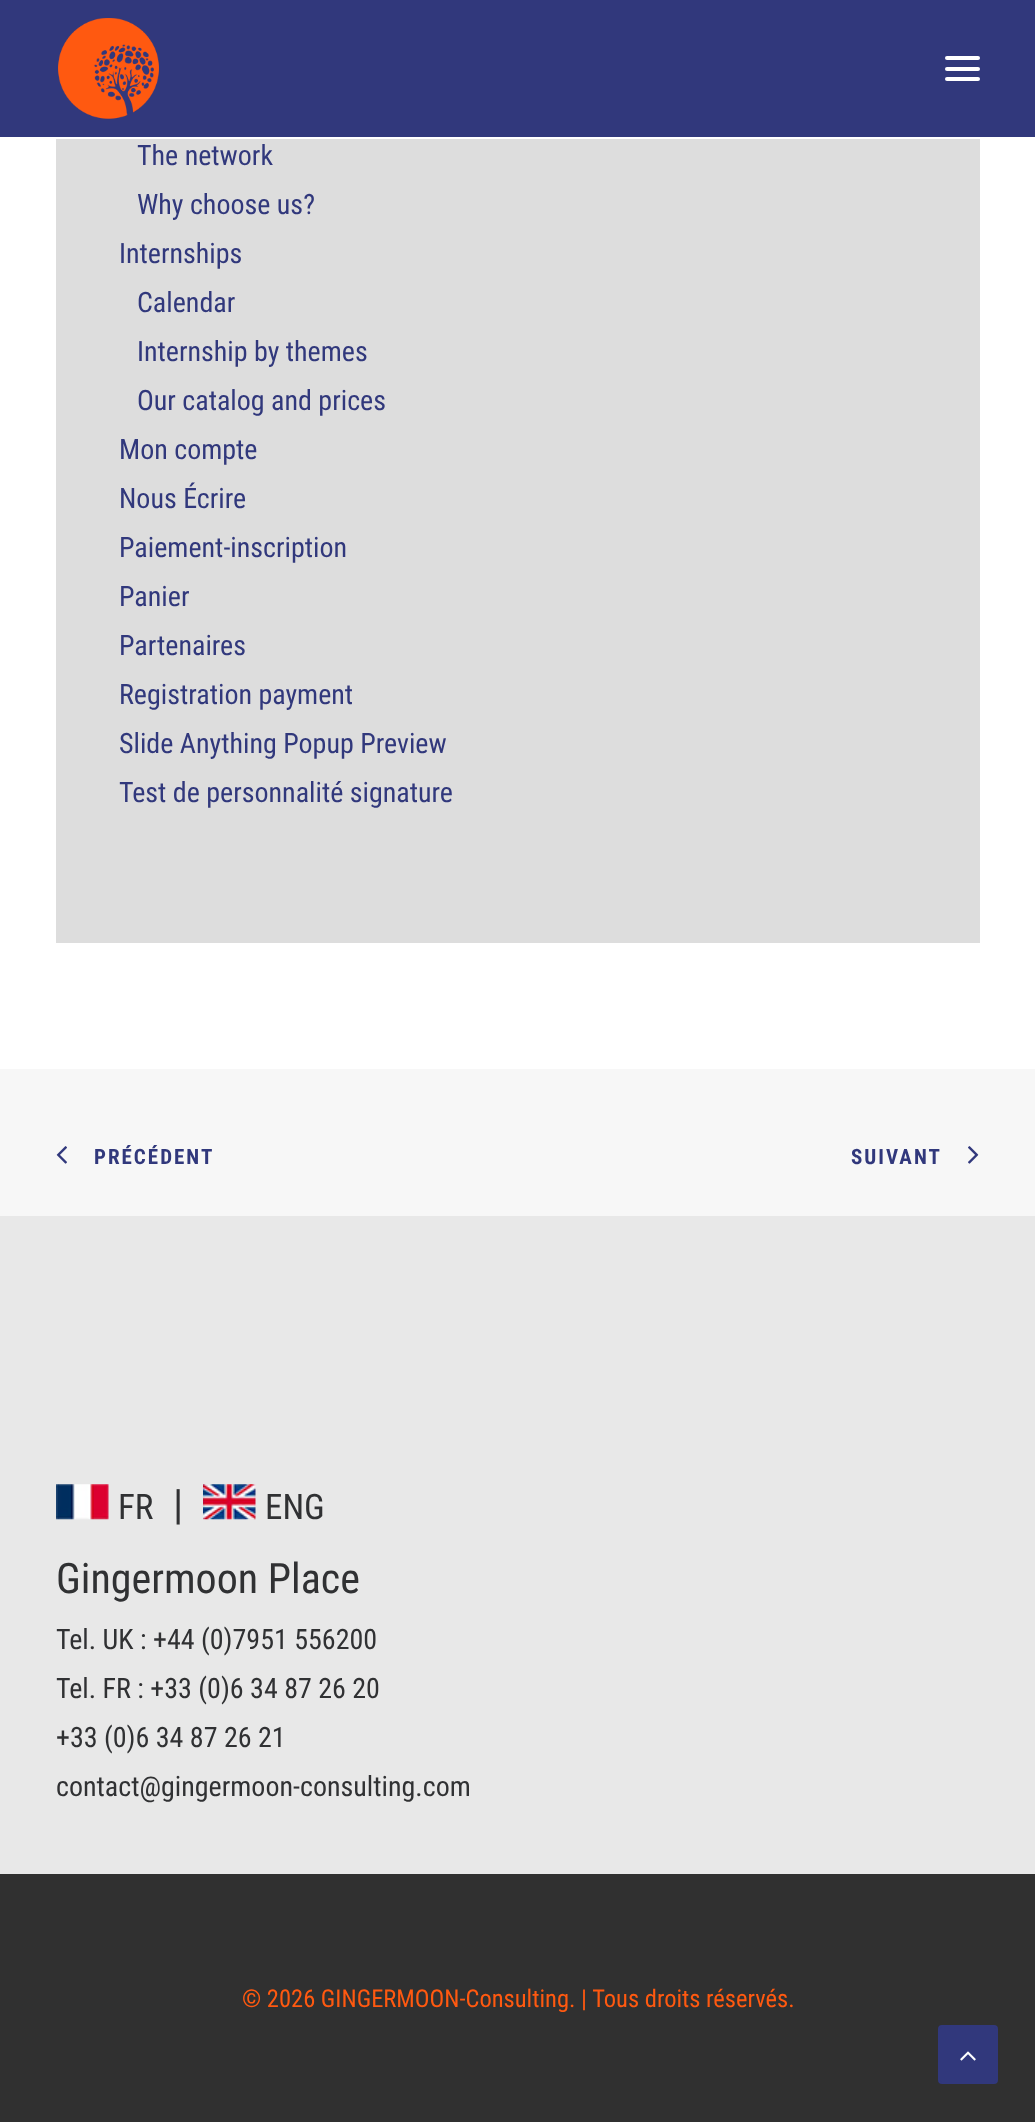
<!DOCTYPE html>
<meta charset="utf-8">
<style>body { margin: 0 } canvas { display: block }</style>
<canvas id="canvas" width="1035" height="2122"></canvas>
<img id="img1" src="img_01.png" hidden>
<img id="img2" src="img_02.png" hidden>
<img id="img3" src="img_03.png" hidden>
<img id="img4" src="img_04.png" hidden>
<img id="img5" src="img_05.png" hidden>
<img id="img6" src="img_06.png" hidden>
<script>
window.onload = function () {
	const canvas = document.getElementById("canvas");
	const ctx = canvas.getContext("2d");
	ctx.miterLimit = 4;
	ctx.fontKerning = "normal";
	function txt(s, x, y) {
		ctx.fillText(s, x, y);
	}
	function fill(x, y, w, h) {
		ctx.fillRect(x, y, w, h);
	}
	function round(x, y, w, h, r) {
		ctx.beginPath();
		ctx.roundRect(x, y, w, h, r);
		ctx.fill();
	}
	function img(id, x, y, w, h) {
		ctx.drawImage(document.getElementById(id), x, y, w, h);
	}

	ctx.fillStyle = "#FFFFFF";
	fill(0, 0, 1035, 2122);
	ctx.fillStyle = "#31387C";
	fill(0, 0, 1035, 137);
	img("img1", 58, 18, 101, 101);
	ctx.fillStyle = "#FFFFFF";
	round(945, 67, 35, 4, 2);
	round(945, 56, 35, 4, 2);
	round(945, 77, 35, 4, 2);
	ctx.fillStyle = "#DDDDDD";
	fill(56, 139, 924, 804);
	ctx.fillStyle = "#F7F7F7";
	fill(0, 1069, 1035, 147);
	img("img2", 56, 1146, 11, 18);
	img("img3", 968, 1146, 11, 18);
	ctx.fillStyle = "#E8E8E8";
	fill(0, 1216, 1035, 658);
	img("img4", 56, 1484, 53, 36);
	img("img5", 203, 1484, 53, 36);
	ctx.fillStyle = "#303030";
	fill(0, 1874, 1035, 248);
	ctx.fillStyle = "#31387C";
	ctx.beginPath();
	ctx.roundRect(939, 2026, 58, 57, 3);
	ctx.fill();
	ctx.strokeStyle = "#31387C";
	ctx.lineWidth = 2;
	ctx.stroke();
	img("img6", 960, 2051, 16, 10);
	ctx.font = "28px Roboto Condensed";
	txt("The network", 137, 165);
	txt("Why choose us?", 137, 214);
	txt("Internships", 119, 263);
	txt("Calendar", 137, 312);
	txt("Internship by themes", 137, 361);
	txt("Our catalog and prices", 137, 410);
	txt("Mon compte", 119, 459);
	txt("Nous Écrire", 119, 508);
	txt("Paiement-inscription", 119, 557);
	txt("Panier", 119, 606);
	txt("Partenaires", 119, 655);
	txt("Registration payment", 119, 704);
	txt("Slide Anything Popup Preview", 119, 753);
	txt("Test de personnalité signature", 119, 802);
	ctx.letterSpacing = "2px";
	ctx.font = "bold 21px Roboto Condensed";
	txt("PRÉCÉDENT", 94, 1164);
	txt("SUIVANT", 851, 1164);
	ctx.letterSpacing = "0px";
	ctx.font = "35px Roboto Condensed";
	ctx.fillStyle = "#303133";
	txt("FR", 118, 1519);
	ctx.font = "42px Roboto Condensed";
	txt("|", 173, 1519);
	ctx.font = "35px Roboto Condensed";
	txt("ENG", 265, 1519);
	ctx.font = "42px Roboto Condensed";
	txt("Gingermoon Place", 56, 1593);
	ctx.font = "28px Roboto Condensed";
	txt("Tel. UK : +44 (0)7951 556200", 56, 1649);
	txt("Tel. FR : +33 (0)6 34 87 26 20", 56, 1698);
	txt("+33 (0)6 34 87 26 21", 56, 1747);
	txt("contact@gingermoon-consulting.com", 56, 1796);
	ctx.font = "24.5px Roboto Condensed";
	ctx.fillStyle = "#FF5910";
	txt("© 2026 GINGERMOON-Consulting. | Tous droits réservés.", 242, 2007);
};
</script>
